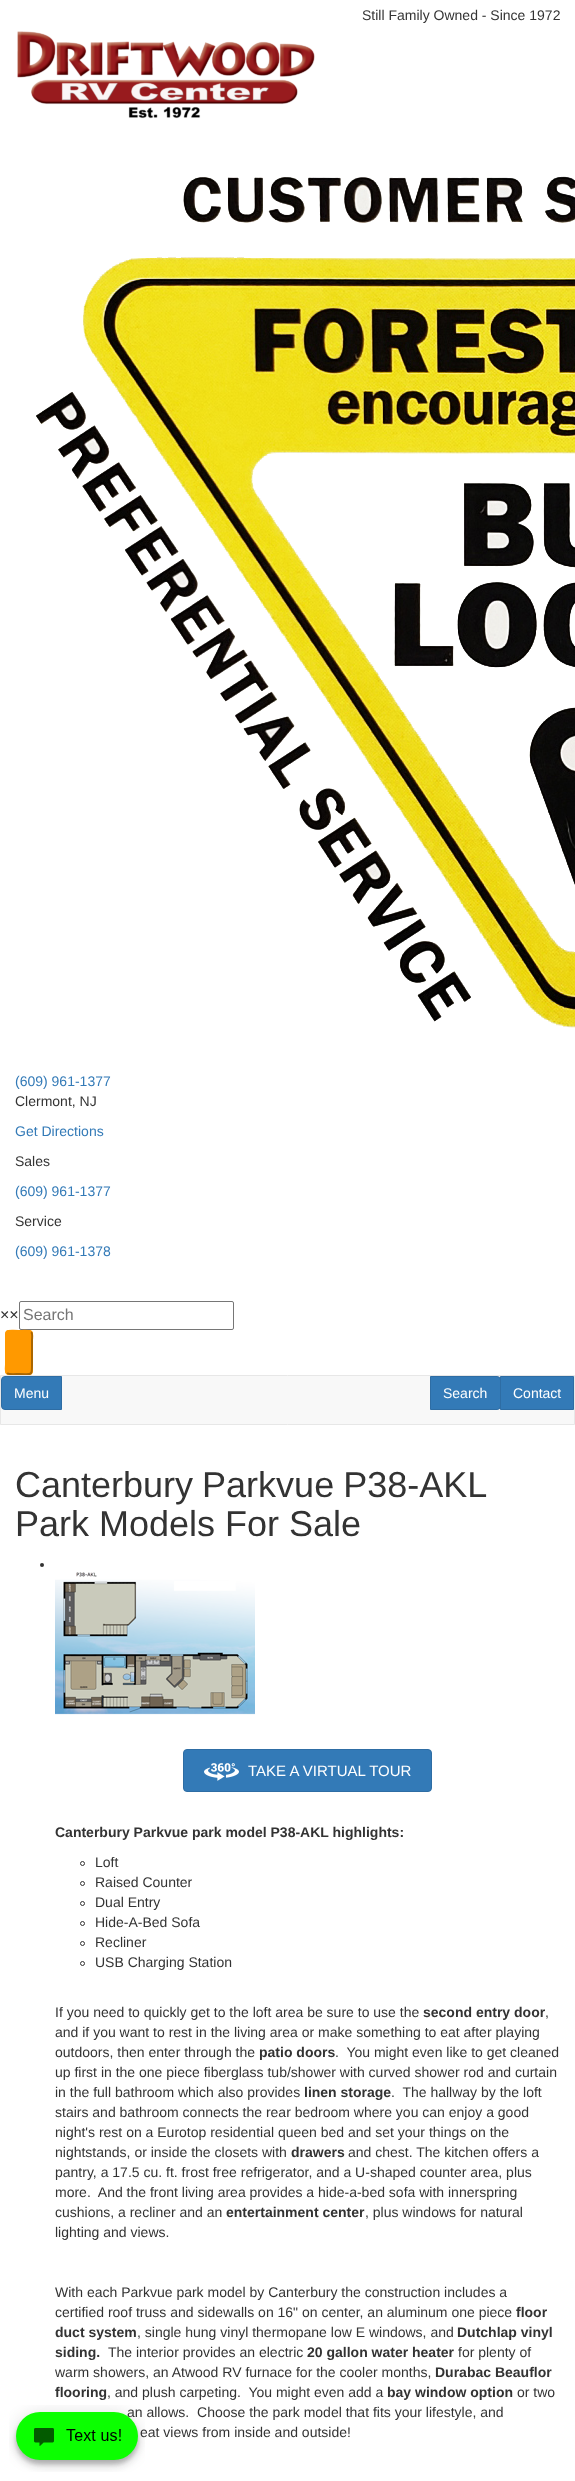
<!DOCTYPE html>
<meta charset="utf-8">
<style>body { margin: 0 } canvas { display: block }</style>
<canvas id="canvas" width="575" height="2481"></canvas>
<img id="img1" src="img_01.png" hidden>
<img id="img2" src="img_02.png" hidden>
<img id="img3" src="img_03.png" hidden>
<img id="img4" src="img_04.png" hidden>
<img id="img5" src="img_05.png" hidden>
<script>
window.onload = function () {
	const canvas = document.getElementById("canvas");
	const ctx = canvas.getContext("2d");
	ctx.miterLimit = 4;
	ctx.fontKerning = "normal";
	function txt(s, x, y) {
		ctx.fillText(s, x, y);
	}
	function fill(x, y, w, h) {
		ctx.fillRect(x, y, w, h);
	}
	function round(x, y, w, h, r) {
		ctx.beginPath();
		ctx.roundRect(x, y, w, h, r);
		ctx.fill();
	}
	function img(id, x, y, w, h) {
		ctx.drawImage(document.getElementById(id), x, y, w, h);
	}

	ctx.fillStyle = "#FFFFFF";
	fill(0, 0, 575, 2481);
	img("img1", 17, 31, 298, 88);
	img("img2", 36, 176, 539, 852);
	ctx.beginPath();
	ctx.roundRect(19.5, 1301.5, 214, 28, 1.5);
	ctx.strokeStyle = "#767676";
	ctx.stroke();
	ctx.fillStyle = "#FF9900";
	round(5, 1330, 28, 45, 4);
	ctx.beginPath();
	ctx.moveTo(31, 1332);
	ctx.bezierCurveTo(33, 1333.5, 32, 1339, 32, 1340);
	ctx.lineTo(32, 1365);
	ctx.bezierCurveTo(32, 1376.5, 31.5, 1374, 19, 1374);
	ctx.bezierCurveTo(16.5, 1374, 9, 1375, 7, 1373);
	ctx.strokeStyle = "#AA6600";
	ctx.lineWidth = 2;
	ctx.stroke();
	ctx.beginPath();
	ctx.moveTo(7, 1373);
	ctx.bezierCurveTo(5, 1371.5, 6, 1366, 6, 1365);
	ctx.lineTo(6, 1340);
	ctx.bezierCurveTo(6, 1328.5, 6.5, 1331, 19, 1331);
	ctx.bezierCurveTo(21.5, 1331, 29, 1330, 31, 1332);
	ctx.strokeStyle = "#FF9900";
	ctx.stroke();
	ctx.fillStyle = "#F8F8F8";
	ctx.beginPath();
	ctx.rect(0.5, 1375.5, 574, 49);
	ctx.fill();
	ctx.strokeStyle = "#E7E7E7";
	ctx.lineWidth = 1;
	ctx.stroke();
	ctx.fillStyle = "#337AB7";
	ctx.beginPath();
	ctx.roundRect(1.5, 1376.5, 60, 33, [3.5, 0, 0, 3.5]);
	ctx.fill();
	ctx.strokeStyle = "#2E6DA4";
	ctx.stroke();
	ctx.beginPath();
	ctx.rect(500.5, 1376.5, 73, 33);
	ctx.fill();
	ctx.stroke();
	ctx.beginPath();
	ctx.roundRect(430.5, 1376.5, 70, 33, [0, 3.5, 3.5, 0]);
	ctx.fill();
	ctx.stroke();
	ctx.fillStyle = "#333333";
	ctx.beginPath();
	ctx.arc(42, 1565, 2, 0, Math.PI * 2);
	ctx.fill();
	img("img3", 55, 1572, 200, 143);
	ctx.fillStyle = "#337AB7";
	ctx.beginPath();
	ctx.roundRect(183.5, 1749.5, 248, 42, 3.5);
	ctx.fill();
	ctx.stroke();
	img("img4", 204, 1763, 35, 18);
	ctx.beginPath();
	ctx.arc(82.5, 1863.5, 2, 0, Math.PI * 2);
	ctx.strokeStyle = "#333333";
	ctx.stroke();
	ctx.beginPath();
	ctx.arc(82.5, 1883.5, 2, 0, Math.PI * 2);
	ctx.stroke();
	ctx.beginPath();
	ctx.arc(82.5, 1903.5, 2, 0, Math.PI * 2);
	ctx.stroke();
	ctx.beginPath();
	ctx.arc(82.5, 1923.5, 2, 0, Math.PI * 2);
	ctx.stroke();
	ctx.beginPath();
	ctx.arc(82.5, 1943.5, 2, 0, Math.PI * 2);
	ctx.stroke();
	ctx.beginPath();
	ctx.arc(82.5, 1963.5, 2, 0, Math.PI * 2);
	ctx.stroke();
	ctx.font = "14px Liberation Sans";
	ctx.fillStyle = "#333333";
	txt("Still Family Owned - Since 1972", 362, 20);
	ctx.fillStyle = "#337AB7";
	txt("(609) 961-1377", 15, 1086);
	ctx.fillStyle = "#333333";
	txt("Clermont, NJ", 15, 1106);
	ctx.fillStyle = "#337AB7";
	txt("Get Directions", 15, 1136);
	ctx.fillStyle = "#333333";
	txt("Sales", 15, 1166);
	ctx.fillStyle = "#337AB7";
	txt("(609) 961-1377", 15, 1196);
	ctx.fillStyle = "#333333";
	txt("Service", 15, 1226);
	ctx.fillStyle = "#337AB7";
	txt("(609) 961-1378", 15, 1256);
	ctx.font = "16px Liberation Sans";
	ctx.fillStyle = "#333333";
	txt("××", 0, 1320);
	ctx.fillStyle = "#757575";
	txt("Search", 23, 1320);
	ctx.font = "14px Liberation Sans";
	ctx.fillStyle = "#FFFFFF";
	txt("Menu", 14, 1398);
	txt("Search", 443, 1398);
	txt("Contact", 513, 1398);
	ctx.wordSpacing = "-1px";
	ctx.font = "36px Liberation Sans";
	ctx.fillStyle = "#333333";
	txt("Canterbury Parkvue P38-AKL", 15, 1497);
	ctx.wordSpacing = "0px";
	txt("Park Models For Sale", 15, 1536);
	ctx.font = "15px Liberation Sans";
	ctx.fillStyle = "#FFFFFF";
	txt("TAKE A VIRTUAL TOUR", 248, 1776);
	ctx.font = "bold 14px Liberation Sans";
	ctx.fillStyle = "#333333";
	txt("Canterbury Parkvue park model P38-AKL highlights:", 55, 1837);
	ctx.font = "14px Liberation Sans";
	txt("Loft", 95, 1867);
	txt("Raised Counter", 95, 1887);
	txt("Dual Entry", 95, 1907);
	txt("Hide-A-Bed Sofa", 95, 1927);
	txt("Recliner", 95, 1947);
	txt("USB Charging Station", 95, 1967);
	txt("If you need to quickly get to the loft area be sure to use the", 55, 2017);
	ctx.font = "bold 14px Liberation Sans";
	txt("second entry door", 423, 2017);
	ctx.font = "14px Liberation Sans";
	txt(",", 545, 2017);
	txt("and if you want to rest in the living area or make something to eat after playing", 55, 2037);
	txt("outdoors, then enter through the", 55, 2057);
	ctx.font = "bold 14px Liberation Sans";
	txt("patio doors", 259, 2057);
	ctx.font = "14px Liberation Sans";
	txt(".  You might even like to get cleaned", 335, 2057);
	txt("up first in the one piece fiberglass tub/shower with curved shower rod and curtain", 55, 2077);
	txt("in the full bathroom which also provides", 55, 2097);
	ctx.font = "bold 14px Liberation Sans";
	txt("linen storage", 304, 2097);
	ctx.font = "14px Liberation Sans";
	txt(".  The hallway by the loft", 391, 2097);
	txt("stairs and bathroom connects the rear bedroom where you can enjoy a good", 55, 2117);
	txt("night's rest on a Eurotop residential queen bed and set your things on the", 55, 2137);
	txt("nightstands, or inside the closets with", 55, 2157);
	ctx.font = "bold 14px Liberation Sans";
	txt("drawers", 291, 2157);
	ctx.font = "14px Liberation Sans";
	txt("and chest. The kitchen offers a", 348, 2157);
	txt("pantry, a 17.5 cu. ft. frost free refrigerator, and a U-shaped counter area, plus", 55, 2177);
	txt("more.  And the front living area provides a hide-a-bed sofa with innerspring", 55, 2197);
	txt("cushions, a recliner and an", 55, 2217);
	ctx.font = "bold 14px Liberation Sans";
	txt("entertainment center", 226, 2217);
	ctx.font = "14px Liberation Sans";
	txt(", plus windows for natural", 365, 2217);
	txt("lighting and views.", 55, 2237);
	txt("With each Parkvue park model by Canterbury the construction includes a", 55, 2297);
	txt("certified roof truss and sidewalls on 16\" on center, an aluminum one piece", 55, 2317);
	ctx.font = "bold 14px Liberation Sans";
	txt("floor", 516, 2317);
	txt("duct system", 55, 2337);
	ctx.font = "14px Liberation Sans";
	txt(", single hung vinyl thermopane low E windows, and", 137, 2337);
	ctx.font = "bold 14px Liberation Sans";
	txt("Dutchlap vinyl", 457, 2337);
	txt("siding.", 55, 2357);
	ctx.font = "14px Liberation Sans";
	txt("The interior provides an electric", 108, 2357);
	ctx.font = "bold 14px Liberation Sans";
	txt("20 gallon water heater", 307, 2357);
	ctx.font = "14px Liberation Sans";
	txt("for plenty of", 458, 2357);
	txt("warm showers, an Atwood RV furnace for the cooler months,", 55, 2377);
	ctx.font = "bold 14px Liberation Sans";
	txt("Durabac Beauflor", 435, 2377);
	txt("flooring", 55, 2397);
	ctx.font = "14px Liberation Sans";
	txt(", and plush carpeting.  You might even add a", 107, 2397);
	ctx.font = "bold 14px Liberation Sans";
	txt("bay window option", 387, 2397);
	ctx.font = "14px Liberation Sans";
	txt("or two", 517, 2397);
	txt("an allows.  Choose the park model that fits your lifestyle, and", 127, 2417);
	txt("eat views from inside and outside!", 140, 2437);
	img("img5", 9, 2405, 136, 67);
};
</script>
